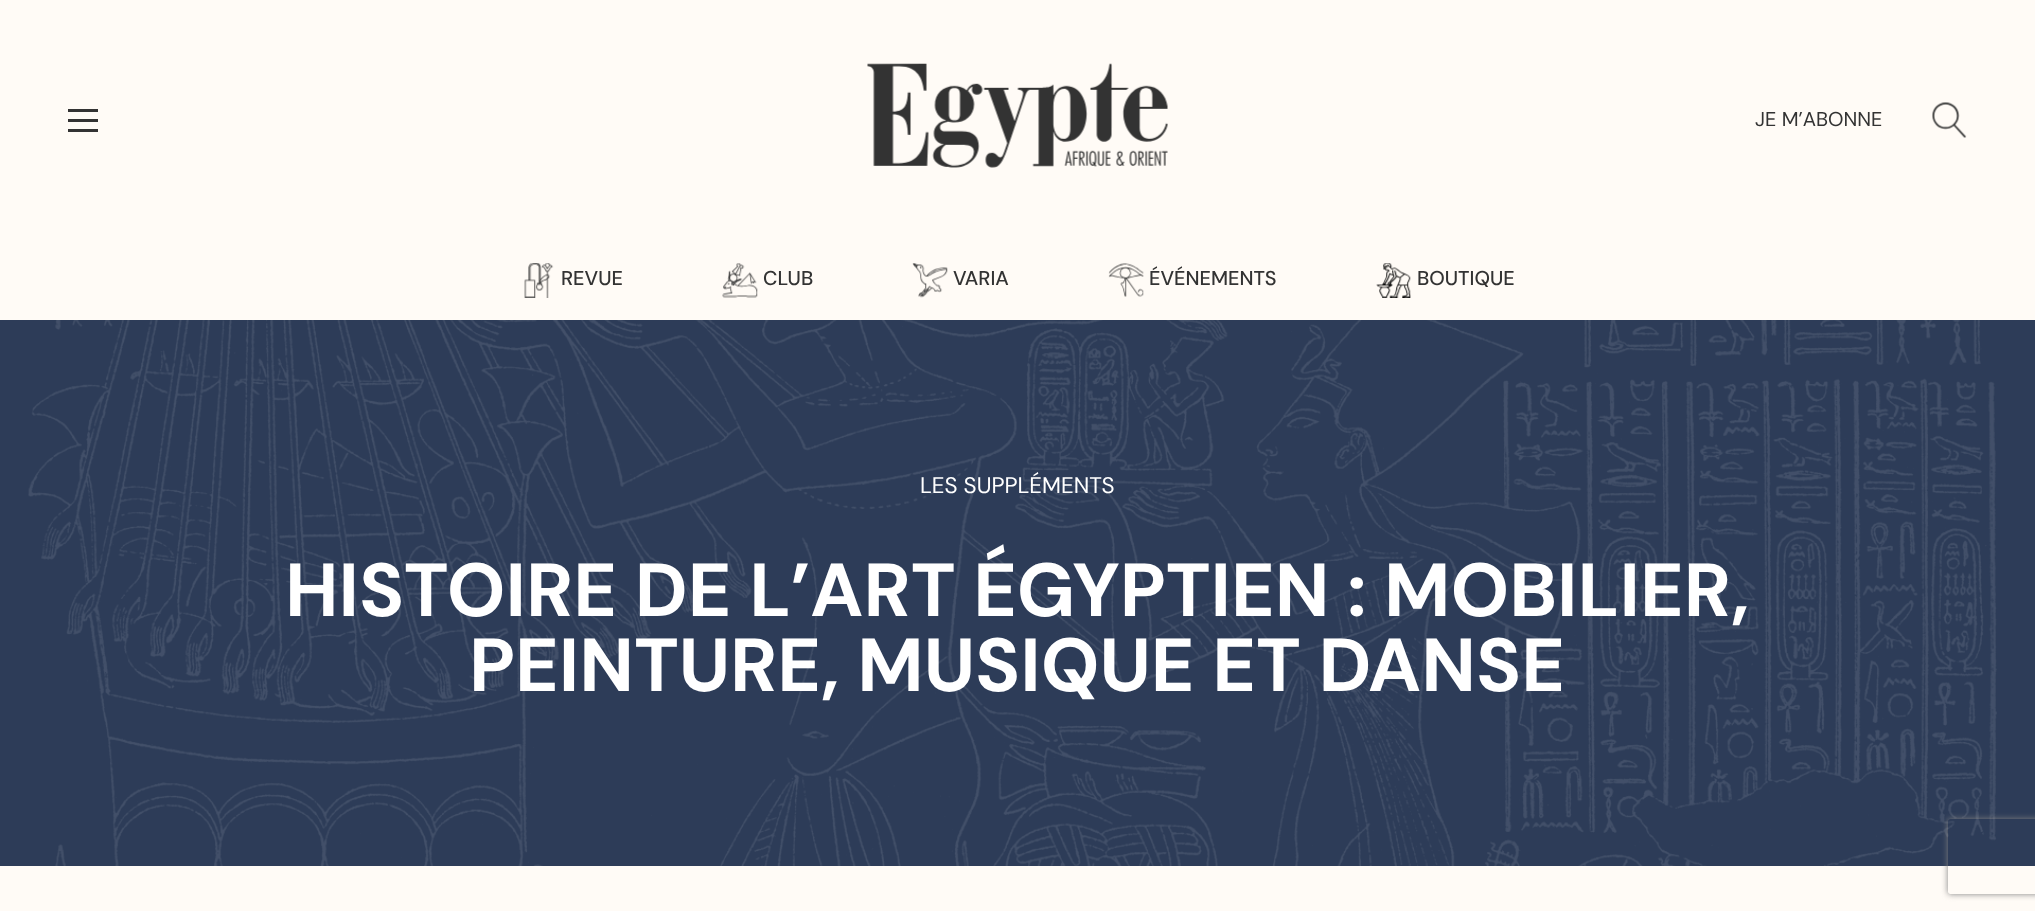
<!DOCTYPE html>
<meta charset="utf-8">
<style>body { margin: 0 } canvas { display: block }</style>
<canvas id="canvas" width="2035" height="911"></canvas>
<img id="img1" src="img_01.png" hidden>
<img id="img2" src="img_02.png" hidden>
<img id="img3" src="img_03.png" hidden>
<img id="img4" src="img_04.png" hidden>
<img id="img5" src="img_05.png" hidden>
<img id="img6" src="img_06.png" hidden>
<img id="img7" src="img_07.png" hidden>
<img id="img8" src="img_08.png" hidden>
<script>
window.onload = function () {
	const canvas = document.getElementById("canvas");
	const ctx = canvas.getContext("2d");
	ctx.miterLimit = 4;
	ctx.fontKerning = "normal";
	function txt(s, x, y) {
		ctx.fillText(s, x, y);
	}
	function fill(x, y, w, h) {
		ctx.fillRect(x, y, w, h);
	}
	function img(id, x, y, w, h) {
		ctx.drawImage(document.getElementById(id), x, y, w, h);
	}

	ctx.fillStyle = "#FFFBF6";
	fill(0, 0, 2035, 911);
	ctx.fillStyle = "#333333";
	fill(68, 109, 30, 3);
	fill(68, 119, 30, 3);
	fill(68, 129, 30, 3);
	img("img1", 867, 63, 301, 105);
	img("img2", 1932, 102, 35, 36);
	img("img3", 524, 263, 30, 35);
	img("img4", 722, 263, 36, 35);
	img("img5", 912, 263, 36, 35);
	img("img6", 1108, 263, 36, 34);
	img("img7", 1376, 263, 35, 35);
	ctx.fillStyle = "#2D3C58";
	fill(0, 320, 2035, 546);
	ctx.save();
	ctx.beginPath();
	ctx.moveTo(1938, 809);
	ctx.lineTo(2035, 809);
	ctx.lineTo(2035, 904);
	ctx.lineTo(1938, 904);
	ctx.closePath();
	ctx.moveTo(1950.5, 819);
	ctx.lineTo(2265.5, 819);
	ctx.bezierCurveTo(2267, 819, 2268, 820, 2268, 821.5);
	ctx.lineTo(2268, 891.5);
	ctx.bezierCurveTo(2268, 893, 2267, 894, 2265.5, 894);
	ctx.lineTo(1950.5, 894);
	ctx.bezierCurveTo(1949, 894, 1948, 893, 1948, 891.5);
	ctx.lineTo(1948, 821.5);
	ctx.bezierCurveTo(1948, 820, 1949, 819, 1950.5, 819);
	ctx.closePath();
	ctx.clip("evenodd");
	ctx.fillStyle = "#808080";
	ctx.filter = "blur(3px)";
	ctx.beginPath();
	ctx.roundRect(1948, 819, 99, 75, 2.5);
	ctx.fill();
	ctx.filter = "none";
	ctx.restore();
	img("img8", 28, 320, 1969, 546);
	ctx.font = "20px DM Sans";
	ctx.fillStyle = "#333333";
	txt("JE M’ABONNE", 1755, 126);
	ctx.font = "500 20px DM Sans";
	txt("REVUE", 561, 285);
	txt("CLUB", 763, 285);
	txt("VARIA", 953, 285);
	txt("ÉVÉNEMENTS", 1149, 285);
	txt("BOUTIQUE", 1417, 285);
	ctx.font = "22.5px DM Sans";
	ctx.fillStyle = "#FFFFFF";
	txt("LES SUPPLÉMENTS", 920, 493);
	ctx.font = "bold 75px DM Sans";
	txt("HISTOIRE DE L’ART ÉGYPTIEN : MOBILIER,", 285, 616);
	txt("PEINTURE, MUSIQUE ET DANSE", 469, 691);
};
</script>
